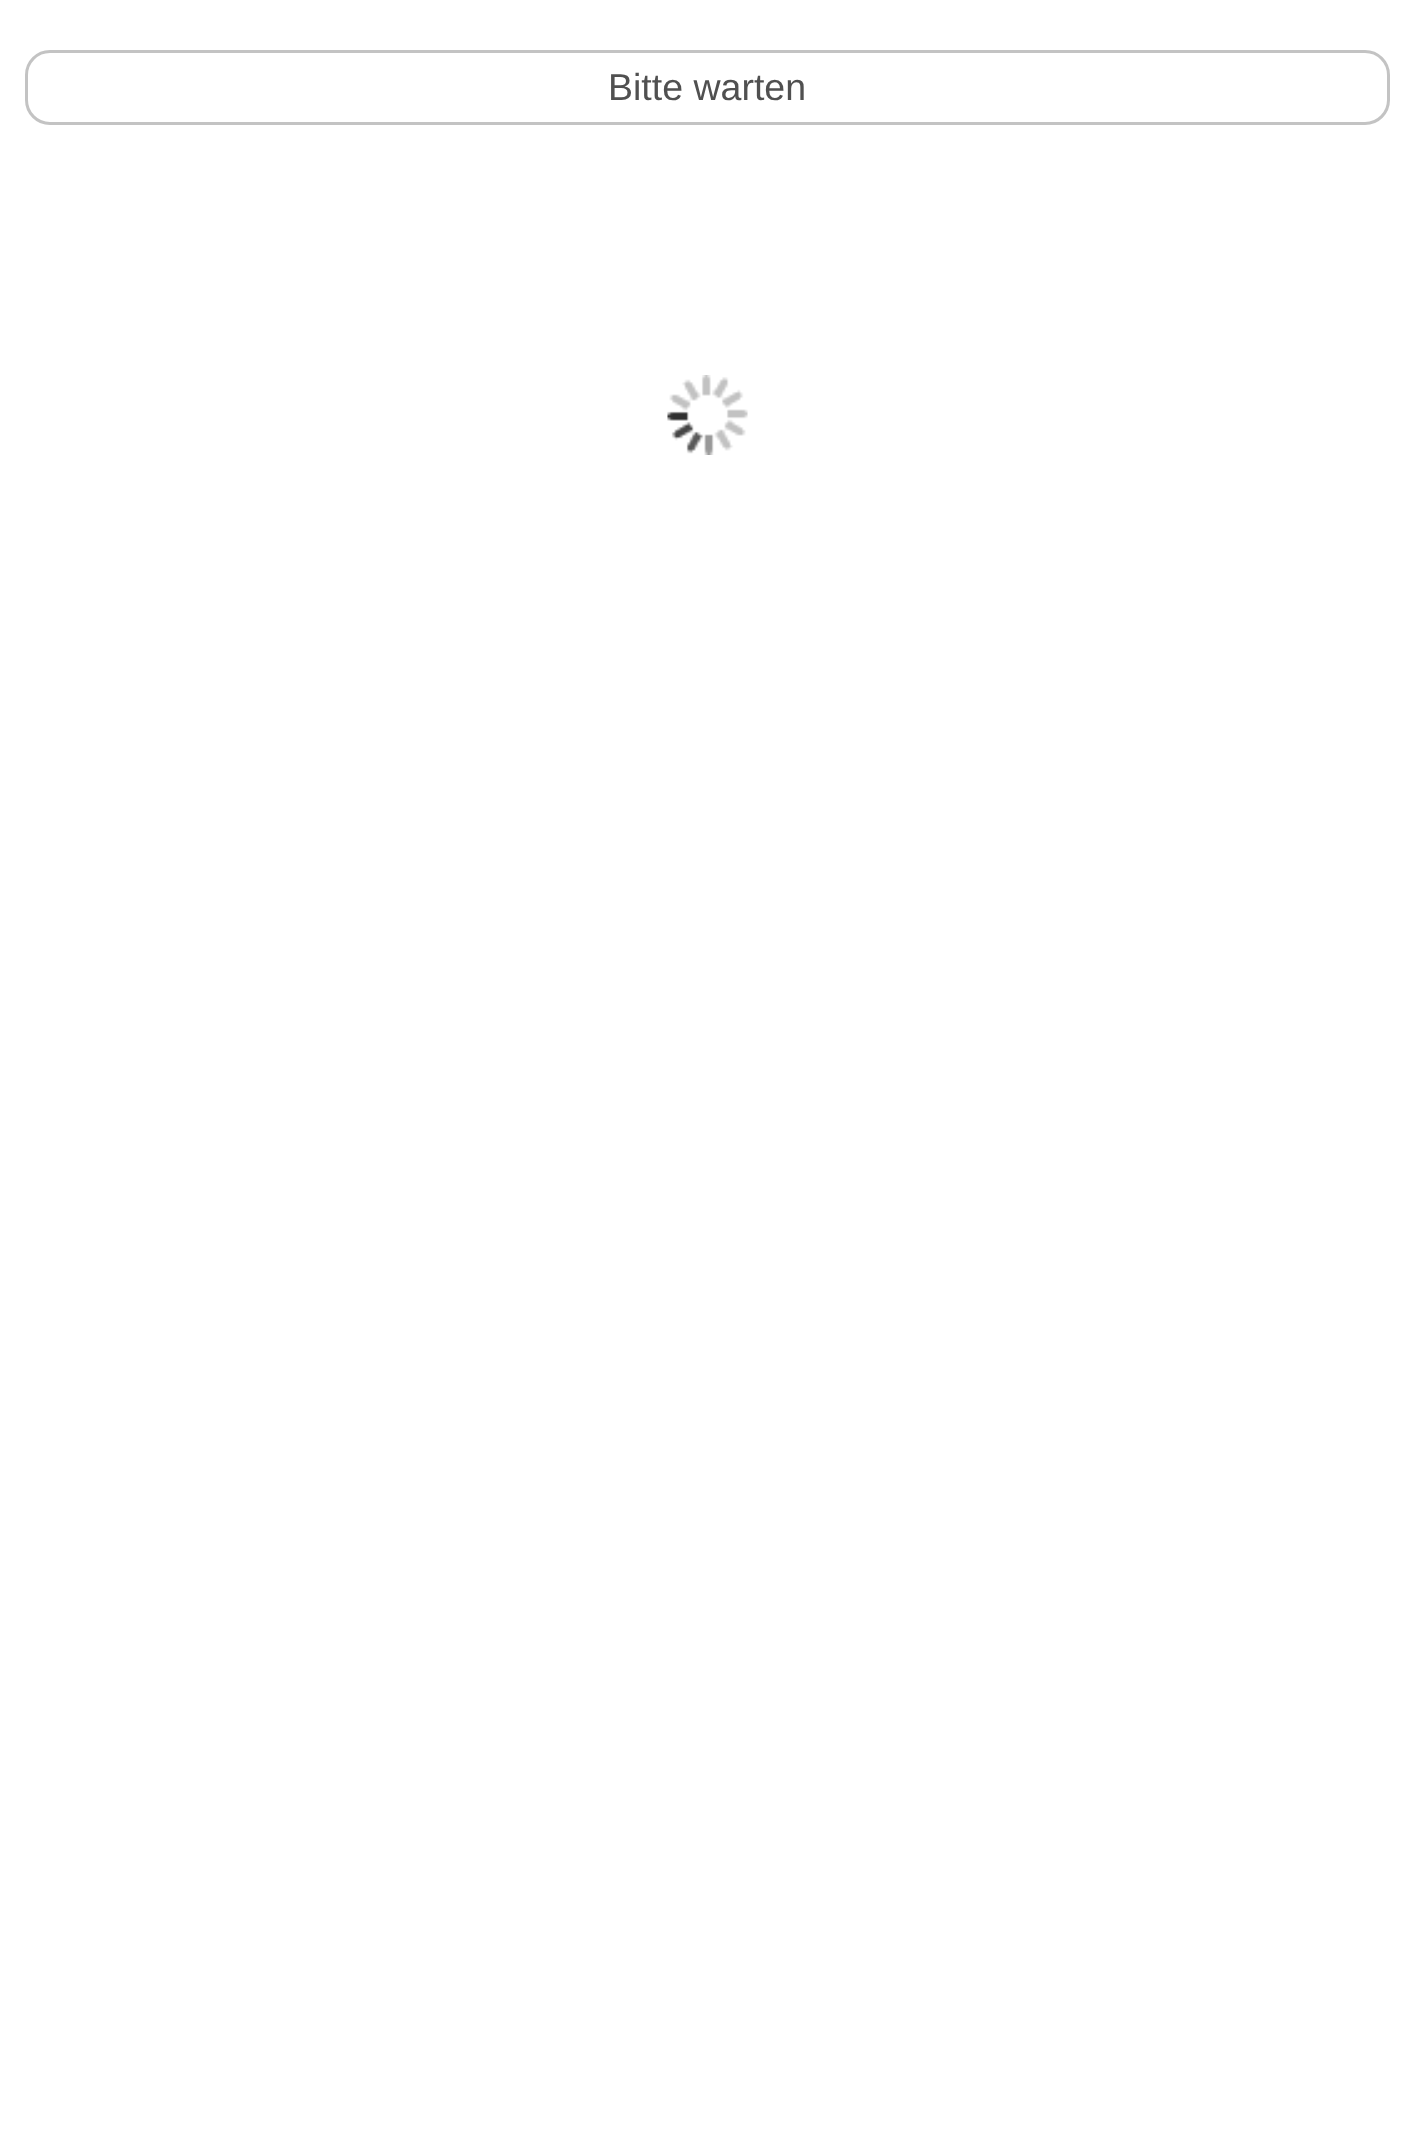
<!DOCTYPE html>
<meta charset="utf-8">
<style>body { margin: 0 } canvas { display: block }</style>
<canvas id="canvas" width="1415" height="2151"></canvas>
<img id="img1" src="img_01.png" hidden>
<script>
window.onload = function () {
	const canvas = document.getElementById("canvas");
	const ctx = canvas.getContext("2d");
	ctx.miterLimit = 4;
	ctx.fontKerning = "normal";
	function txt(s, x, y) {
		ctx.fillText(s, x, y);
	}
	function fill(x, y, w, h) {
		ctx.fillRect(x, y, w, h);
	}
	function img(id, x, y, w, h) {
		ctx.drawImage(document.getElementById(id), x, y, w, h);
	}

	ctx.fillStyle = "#FFFFFF";
	fill(0, 0, 1415, 2151);
	img("img1", 667, 375, 81, 80);
	ctx.beginPath();
	ctx.roundRect(26.5, 51.5, 1362, 72, 23.5);
	ctx.strokeStyle = "#C3C3C3";
	ctx.lineWidth = 3;
	ctx.stroke();
	ctx.font = "37.5px Liberation Sans";
	ctx.fillStyle = "#505050";
	txt("Bitte warten", 608, 100);
};
</script>
